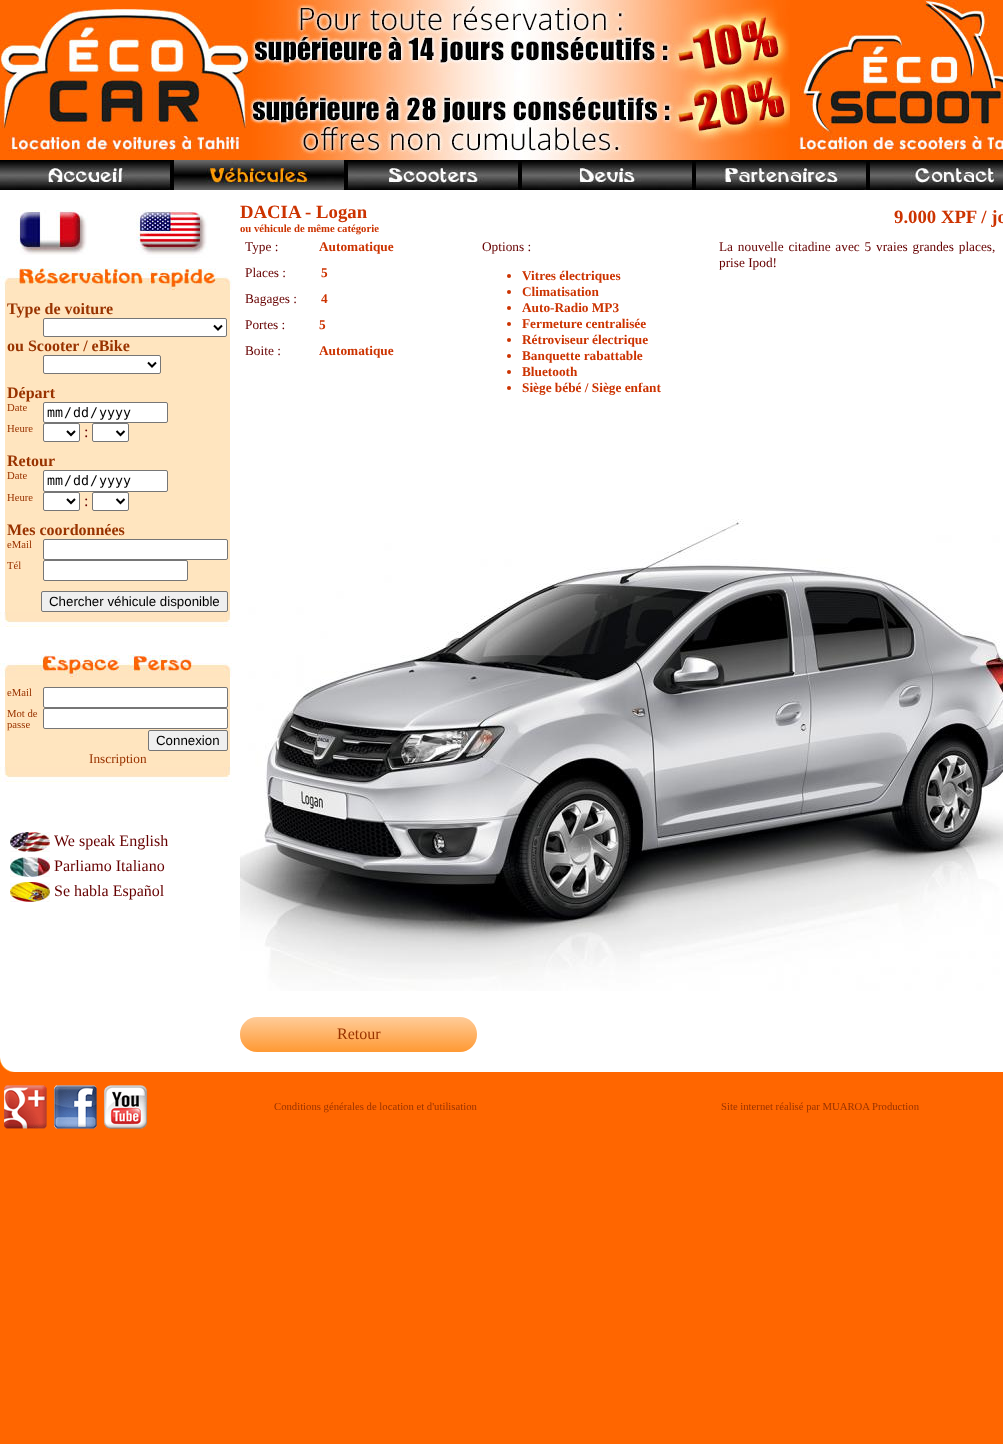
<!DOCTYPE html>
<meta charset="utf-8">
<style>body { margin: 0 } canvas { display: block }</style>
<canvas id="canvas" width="1003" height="1444"></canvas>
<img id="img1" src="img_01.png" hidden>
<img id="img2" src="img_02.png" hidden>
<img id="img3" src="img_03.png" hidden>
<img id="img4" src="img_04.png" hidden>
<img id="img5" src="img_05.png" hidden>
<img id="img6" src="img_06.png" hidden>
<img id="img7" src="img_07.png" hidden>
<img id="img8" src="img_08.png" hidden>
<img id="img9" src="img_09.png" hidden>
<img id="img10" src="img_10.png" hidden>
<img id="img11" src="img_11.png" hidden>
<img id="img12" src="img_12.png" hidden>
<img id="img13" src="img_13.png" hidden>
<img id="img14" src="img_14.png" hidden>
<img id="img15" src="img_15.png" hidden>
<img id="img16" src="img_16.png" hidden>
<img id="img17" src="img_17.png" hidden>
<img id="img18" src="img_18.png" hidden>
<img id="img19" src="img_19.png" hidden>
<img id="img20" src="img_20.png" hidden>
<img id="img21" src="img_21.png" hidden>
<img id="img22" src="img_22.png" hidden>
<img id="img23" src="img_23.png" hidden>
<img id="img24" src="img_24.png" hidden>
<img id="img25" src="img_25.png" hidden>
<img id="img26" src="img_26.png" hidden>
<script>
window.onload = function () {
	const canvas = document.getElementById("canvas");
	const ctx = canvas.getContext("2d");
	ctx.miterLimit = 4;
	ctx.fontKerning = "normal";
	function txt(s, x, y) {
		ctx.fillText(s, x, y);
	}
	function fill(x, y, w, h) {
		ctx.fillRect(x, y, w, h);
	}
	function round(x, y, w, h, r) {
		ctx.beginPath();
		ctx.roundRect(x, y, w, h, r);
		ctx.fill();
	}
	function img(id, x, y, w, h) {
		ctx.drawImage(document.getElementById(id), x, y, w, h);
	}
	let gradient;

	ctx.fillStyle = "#FF6600";
	fill(0, 0, 1003, 1444);
	img("img1", 0, 8, 248, 144);
	img("img2", 250, 0, 540, 160);
	img("img3", 798, 0, 205, 152);
	img("img4", 170, 160, 4, 30);
	img("img5", 0, 160, 170, 30);
	img("img6", 344, 160, 4, 30);
	img("img7", 174, 160, 170, 30);
	img("img8", 518, 160, 4, 30);
	img("img9", 348, 160, 170, 30);
	img("img4", 692, 160, 4, 30);
	img("img10", 522, 160, 170, 30);
	img("img11", 866, 160, 4, 30);
	img("img12", 696, 160, 170, 30);
	img("img13", 870, 160, 133, 30);
	ctx.fillStyle = "#FFFFFF";
	fill(0, 190, 1003, 867);
	img("img14", 16, 210, 72, 45);
	img("img15", 136, 210, 72, 48);
	img("img16", 0, 268, 232, 22);
	ctx.fillStyle = "#FFE5BF";
	fill(5, 290, 225, 322);
	ctx.fillStyle = "#FFFFFF";
	ctx.beginPath();
	ctx.roundRect(43.5, 318.5, 183, 18, 1.5);
	ctx.fill();
	ctx.strokeStyle = "#767676";
	ctx.stroke();
	ctx.beginPath();
	ctx.moveTo(214, 325.5);
	ctx.lineTo(218, 329.5);
	ctx.lineTo(222, 325.5);
	ctx.strokeStyle = "#000000";
	ctx.lineWidth = 2;
	ctx.stroke();
	ctx.beginPath();
	ctx.roundRect(43.5, 355.5, 117, 18, 1.5);
	ctx.fill();
	ctx.strokeStyle = "#767676";
	ctx.lineWidth = 1;
	ctx.stroke();
	ctx.beginPath();
	ctx.moveTo(148, 362.5);
	ctx.lineTo(152, 366.5);
	ctx.lineTo(156, 362.5);
	ctx.strokeStyle = "#000000";
	ctx.lineWidth = 2;
	ctx.stroke();
	ctx.beginPath();
	ctx.roundRect(43.5, 402.5, 124, 20, 1.5);
	ctx.fill();
	ctx.strokeStyle = "#767676";
	ctx.lineWidth = 1;
	ctx.stroke();
	ctx.beginPath();
	ctx.roundRect(43.5, 423.5, 36, 18, 1.5);
	ctx.fill();
	ctx.stroke();
	ctx.beginPath();
	ctx.moveTo(67, 431);
	ctx.lineTo(71, 435);
	ctx.lineTo(75, 431);
	ctx.strokeStyle = "#000000";
	ctx.lineWidth = 2;
	ctx.stroke();
	ctx.beginPath();
	ctx.roundRect(92.5, 423.5, 36, 18, 1.5);
	ctx.fill();
	ctx.strokeStyle = "#767676";
	ctx.lineWidth = 1;
	ctx.stroke();
	ctx.beginPath();
	ctx.moveTo(116.5, 431);
	ctx.lineTo(120.5, 435);
	ctx.lineTo(124.5, 431);
	ctx.strokeStyle = "#000000";
	ctx.lineWidth = 2;
	ctx.stroke();
	ctx.beginPath();
	ctx.roundRect(43.5, 470.5, 124, 21, 1.5);
	ctx.fill();
	ctx.strokeStyle = "#767676";
	ctx.lineWidth = 1;
	ctx.stroke();
	ctx.beginPath();
	ctx.roundRect(43.5, 492.5, 36, 18, 1.5);
	ctx.fill();
	ctx.stroke();
	ctx.beginPath();
	ctx.moveTo(67, 499);
	ctx.lineTo(71, 503);
	ctx.lineTo(75, 499);
	ctx.strokeStyle = "#000000";
	ctx.lineWidth = 2;
	ctx.stroke();
	ctx.beginPath();
	ctx.roundRect(92.5, 492.5, 36, 18, 1.5);
	ctx.fill();
	ctx.strokeStyle = "#767676";
	ctx.lineWidth = 1;
	ctx.stroke();
	ctx.beginPath();
	ctx.moveTo(116.5, 499);
	ctx.lineTo(120.5, 503);
	ctx.lineTo(124.5, 499);
	ctx.strokeStyle = "#000000";
	ctx.lineWidth = 2;
	ctx.stroke();
	ctx.beginPath();
	ctx.roundRect(43.5, 539.5, 184, 20, 1.5);
	ctx.fill();
	ctx.strokeStyle = "#767676";
	ctx.lineWidth = 1;
	ctx.stroke();
	ctx.beginPath();
	ctx.roundRect(43.5, 560.5, 144, 20, 1.5);
	ctx.fill();
	ctx.stroke();
	ctx.fillStyle = "#EFEFEF";
	ctx.beginPath();
	ctx.roundRect(41.5, 591.5, 186, 20, 1.5);
	ctx.fill();
	ctx.stroke();
	img("img17", 0, 612, 232, 15);
	img("img18", 0, 655, 232, 22);
	ctx.fillStyle = "#FFE5BF";
	fill(5, 677, 225, 90);
	ctx.fillStyle = "#FFFFFF";
	ctx.beginPath();
	ctx.roundRect(43.5, 687.5, 184, 20, 1.5);
	ctx.fill();
	ctx.stroke();
	ctx.beginPath();
	ctx.roundRect(43.5, 708.5, 184, 20, 1.5);
	ctx.fill();
	ctx.stroke();
	ctx.fillStyle = "#EFEFEF";
	ctx.beginPath();
	ctx.roundRect(148.5, 730.5, 79, 20, 1.5);
	ctx.fill();
	ctx.stroke();
	img("img17", 0, 767, 232, 15);
	img("img19", 10, 832, 40, 20);
	img("img20", 10, 857, 40, 20);
	img("img21", 10, 882, 40, 20);
	ctx.fillStyle = "#CC3300";
	ctx.beginPath();
	ctx.arc(509, 276, 2, 0, Math.PI * 2);
	ctx.fill();
	ctx.beginPath();
	ctx.arc(509, 292, 2, 0, Math.PI * 2);
	ctx.fill();
	ctx.beginPath();
	ctx.arc(509, 308, 2, 0, Math.PI * 2);
	ctx.fill();
	ctx.beginPath();
	ctx.arc(509, 324, 2, 0, Math.PI * 2);
	ctx.fill();
	ctx.beginPath();
	ctx.arc(509, 340, 2, 0, Math.PI * 2);
	ctx.fill();
	ctx.beginPath();
	ctx.arc(509, 356, 2, 0, Math.PI * 2);
	ctx.fill();
	ctx.beginPath();
	ctx.arc(509, 372, 2, 0, Math.PI * 2);
	ctx.fill();
	ctx.beginPath();
	ctx.arc(509, 388, 2, 0, Math.PI * 2);
	ctx.fill();
	img("img22", 240, 519, 763, 472);
	gradient = ctx.createLinearGradient(359, 1017, 359, 1052);
	gradient.addColorStop(0, "#FFCC99");
	gradient.addColorStop(1, "#FF9933");
	ctx.fillStyle = gradient;
	round(240, 1017, 237, 35, 17);
	img("img23", 0, 1057, 1003, 15);
	img("img24", 4, 1085, 43, 44);
	img("img25", 54, 1085, 43, 44);
	img("img26", 104, 1085, 43, 44);
	ctx.font = "bold 16px Liberation Serif";
	ctx.fillStyle = "#993300";
	txt("Type de voiture", 7, 314);
	txt("ou Scooter / eBike", 7, 351);
	txt("Départ", 7, 398);
	ctx.font = "10.7px Liberation Serif";
	txt("Date", 7, 411);
	ctx.font = "13.3px DejaVu Sans Mono";
	ctx.fillStyle = "#000000";
	txt("mm", 47, 417);
	txt("/", 64, 417);
	txt("dd", 73, 417);
	txt("/", 90, 417);
	txt("yyyy", 99, 417);
	ctx.font = "10.7px Liberation Serif";
	ctx.fillStyle = "#993300";
	txt("Heure", 7, 432);
	ctx.font = "16px Liberation Serif";
	ctx.fillStyle = "#660000";
	txt(":", 84, 437);
	ctx.font = "bold 16px Liberation Serif";
	ctx.fillStyle = "#993300";
	txt("Retour", 7, 466);
	ctx.font = "10.7px Liberation Serif";
	txt("Date", 7, 479);
	ctx.font = "13.3px DejaVu Sans Mono";
	ctx.fillStyle = "#000000";
	txt("mm", 47, 485);
	txt("/", 64, 485);
	txt("dd", 73, 485);
	txt("/", 90, 485);
	txt("yyyy", 99, 485);
	ctx.font = "10.7px Liberation Serif";
	ctx.fillStyle = "#993300";
	txt("Heure", 7, 501);
	ctx.font = "16px Liberation Serif";
	ctx.fillStyle = "#660000";
	txt(":", 84, 506);
	ctx.font = "bold 16px Liberation Serif";
	ctx.fillStyle = "#993300";
	txt("Mes coordonnées", 7, 535);
	ctx.font = "10.7px Liberation Serif";
	txt("eMail", 7, 548);
	txt("Tél", 7, 569);
	ctx.font = "13.3px Liberation Sans";
	ctx.fillStyle = "#000000";
	txt("Chercher véhicule disponible", 49, 606);
	ctx.font = "10.7px Liberation Serif";
	ctx.fillStyle = "#993300";
	txt("eMail", 7, 696);
	txt("Mot de", 7, 717);
	txt("passe", 7, 728);
	ctx.font = "13.3px Liberation Sans";
	ctx.fillStyle = "#000000";
	txt("Connexion", 156, 745);
	ctx.font = "13.3px Liberation Serif";
	ctx.fillStyle = "#993300";
	txt("Inscription", 89, 763);
	ctx.font = "16px Liberation Serif";
	ctx.fillStyle = "#660000";
	txt("We speak English", 54, 846);
	txt("Parliamo Italiano", 54, 871);
	txt("Se habla Español", 54, 896);
	ctx.font = "bold 18.75px Liberation Serif";
	ctx.fillStyle = "#CC3300";
	txt("DACIA - Logan", 240, 218);
	ctx.font = "bold 10.7px Liberation Serif";
	txt("ou véhicule de même catégorie", 240, 232);
	ctx.font = "bold 18.75px Liberation Serif";
	txt("9.000 XPF / jo", 894, 223);
	ctx.font = "13.3px Liberation Serif";
	ctx.fillStyle = "#660000";
	txt("Type :", 245, 251);
	ctx.font = "bold 13.3px Liberation Serif";
	ctx.fillStyle = "#CC3300";
	txt("Automatique", 319, 251);
	ctx.font = "13.3px Liberation Serif";
	ctx.fillStyle = "#660000";
	txt("Places :", 245, 277);
	ctx.font = "bold 13.3px Liberation Serif";
	ctx.fillStyle = "#CC3300";
	txt("5", 321, 277);
	ctx.font = "13.3px Liberation Serif";
	ctx.fillStyle = "#660000";
	txt("Bagages :", 245, 303);
	ctx.font = "bold 13.3px Liberation Serif";
	ctx.fillStyle = "#CC3300";
	txt("4", 321, 303);
	ctx.font = "13.3px Liberation Serif";
	ctx.fillStyle = "#660000";
	txt("Portes :", 245, 329);
	ctx.font = "bold 13.3px Liberation Serif";
	ctx.fillStyle = "#CC3300";
	txt("5", 319, 329);
	ctx.font = "13.3px Liberation Serif";
	ctx.fillStyle = "#660000";
	txt("Boite :", 245, 355);
	ctx.font = "bold 13.3px Liberation Serif";
	ctx.fillStyle = "#CC3300";
	txt("Automatique", 319, 355);
	ctx.font = "13.3px Liberation Serif";
	ctx.fillStyle = "#660000";
	txt("Options :", 482, 251);
	ctx.font = "bold 13.3px Liberation Serif";
	ctx.fillStyle = "#CC3300";
	txt("Vitres électriques", 522, 280);
	txt("Climatisation", 522, 296);
	txt("Auto-Radio MP3", 522, 312);
	txt("Fermeture centralisée", 522, 328);
	txt("Rétroviseur électrique", 522, 344);
	txt("Banquette rabattable", 522, 360);
	txt("Bluetooth", 522, 376);
	txt("Siège bébé / Siège enfant", 522, 392);
	ctx.wordSpacing = "1.5px";
	ctx.font = "13.3px Liberation Serif";
	ctx.fillStyle = "#660000";
	txt("La nouvelle citadine avec 5 vraies grandes places,", 719, 251);
	ctx.wordSpacing = "0px";
	txt("prise Ipod!", 719, 267);
	ctx.font = "16px Liberation Serif";
	ctx.fillStyle = "#993300";
	txt("Retour", 337, 1039);
	ctx.font = "10.7px Liberation Serif";
	txt("Conditions générales de location et d'utilisation", 274, 1110);
	txt("Site internet réalisé par MUAROA Production", 721, 1110);
};
</script>
